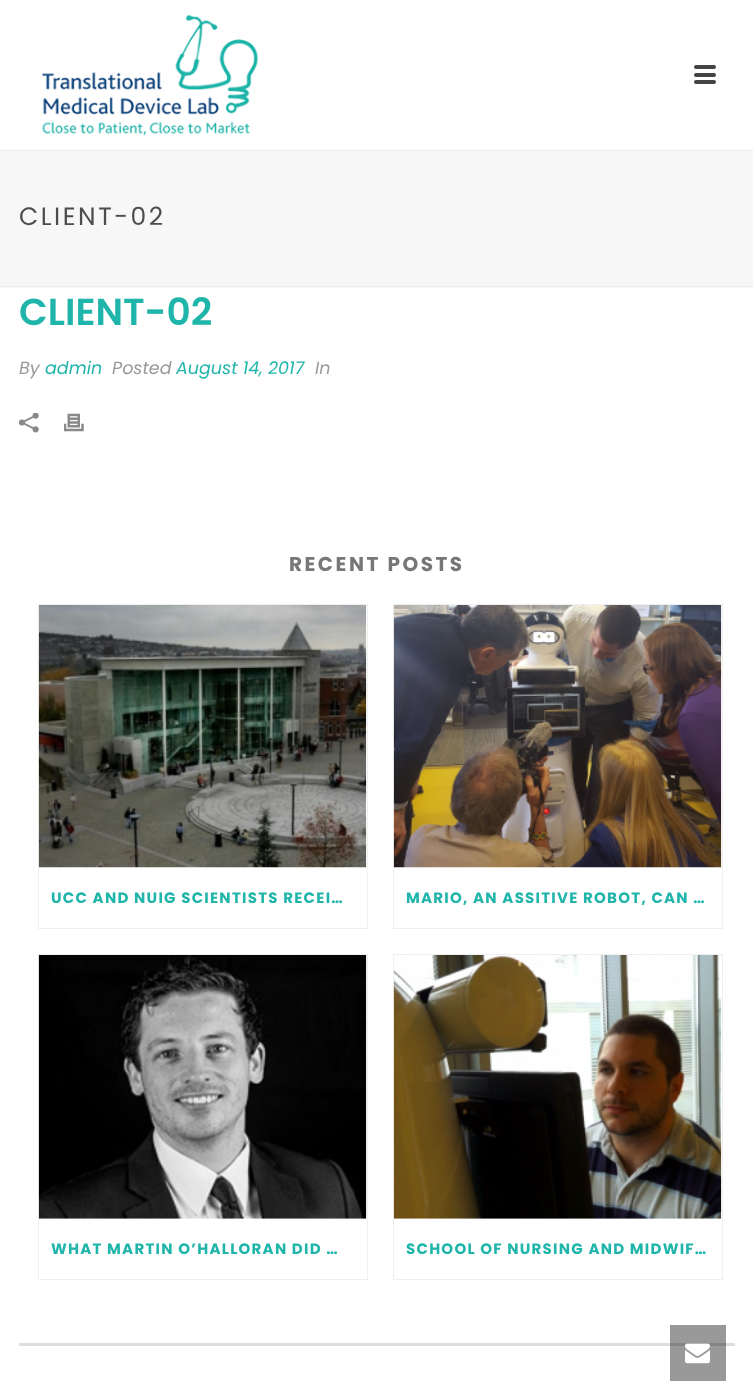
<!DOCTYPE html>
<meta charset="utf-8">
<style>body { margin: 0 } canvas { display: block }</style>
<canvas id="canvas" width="753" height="1400"></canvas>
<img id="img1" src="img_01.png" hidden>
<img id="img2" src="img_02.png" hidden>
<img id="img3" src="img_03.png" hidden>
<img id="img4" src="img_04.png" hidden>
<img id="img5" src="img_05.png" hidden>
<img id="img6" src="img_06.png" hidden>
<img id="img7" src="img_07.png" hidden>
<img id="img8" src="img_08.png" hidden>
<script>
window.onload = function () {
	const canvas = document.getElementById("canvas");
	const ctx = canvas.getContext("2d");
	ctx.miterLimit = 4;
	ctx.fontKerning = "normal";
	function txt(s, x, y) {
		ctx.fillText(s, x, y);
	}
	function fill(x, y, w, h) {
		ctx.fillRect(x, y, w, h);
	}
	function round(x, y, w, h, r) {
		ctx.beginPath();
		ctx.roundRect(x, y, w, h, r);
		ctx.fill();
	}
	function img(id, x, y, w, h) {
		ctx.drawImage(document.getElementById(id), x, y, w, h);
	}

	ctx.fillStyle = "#FFFFFF";
	fill(0, 0, 753, 1400);
	ctx.fillStyle = "#999999";
	fill(670, 1325, 56, 56);
	ctx.fillStyle = "#F7F7F7";
	fill(0, 151, 753, 137);
	ctx.fillStyle = "#EDEDED";
	fill(0, 286, 753, 1);
	fill(0, 150, 753, 1);
	img("img1", 42, 15, 216, 121);
	ctx.fillStyle = "#444444";
	round(694, 65, 22, 4, 2);
	round(694, 73, 22, 4, 2);
	round(694, 80, 22, 4, 2);
	img("img2", 19, 413, 20, 20);
	img("img3", 64, 413, 20, 19);
	ctx.fillStyle = "#DDDDDD";
	fill(19, 1343, 716, 3);
	ctx.fillStyle = "#858585";
	fill(670, 1343, 56, 3);
	ctx.strokeStyle = "#EFEFEF";
	ctx.strokeRect(38.5, 604.5, 329, 324);
	img("img4", 38, 605, 329, 263);
	ctx.strokeRect(393.5, 604.5, 329, 324);
	img("img5", 393, 605, 329, 263);
	ctx.strokeRect(38.5, 954.5, 329, 325);
	img("img6", 38, 955, 329, 264);
	ctx.strokeRect(393.5, 954.5, 329, 325);
	img("img7", 393, 955, 329, 264);
	img("img8", 685, 1343, 25, 21);
	ctx.letterSpacing = "2.5px";
	ctx.font = "25px Poppins";
	ctx.fillStyle = "#4D4D4D";
	txt("CLIENT-02", 19, 225);
	ctx.letterSpacing = "0px";
	ctx.font = "600 37.5px Poppins";
	ctx.fillStyle = "#20B5AA";
	txt("CLIENT-02", 19, 325);
	ctx.font = "italic 17.5px Poppins";
	ctx.fillStyle = "#999999";
	txt("By", 19, 374);
	ctx.fillStyle = "#20B5AA";
	txt("admin", 45, 374);
	ctx.fillStyle = "#999999";
	txt("Posted", 112, 374);
	ctx.fillStyle = "#20B5AA";
	txt("August 14, 2017", 176, 374);
	ctx.fillStyle = "#999999";
	txt("In", 315, 374);
	ctx.letterSpacing = "2.5px";
	ctx.font = "bold 20px Poppins";
	ctx.fillStyle = "#777777";
	txt("RECENT POSTS", 289, 571);
	ctx.letterSpacing = "1.25px";
	ctx.font = "bold 15px Poppins";
	ctx.fillStyle = "#20B5AA";
	txt("UCC AND NUIG SCIENTISTS RECEI…", 51, 903);
	txt("MARIO, AN ASSITIVE ROBOT, CAN …", 406, 903);
	txt("WHAT MARTIN O’HALLORAN DID …", 51, 1254);
	txt("SCHOOL OF NURSING AND MIDWIF…", 406, 1254);
};
</script>
